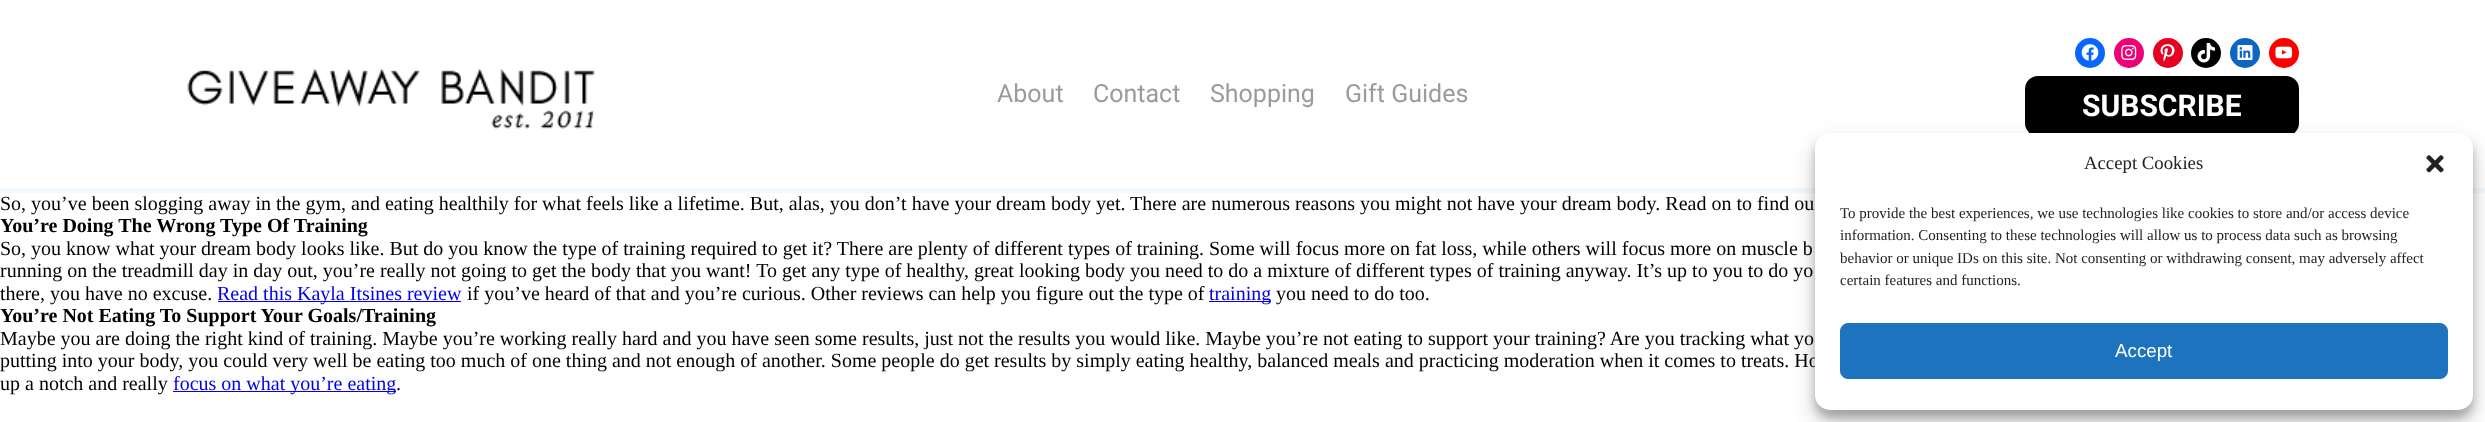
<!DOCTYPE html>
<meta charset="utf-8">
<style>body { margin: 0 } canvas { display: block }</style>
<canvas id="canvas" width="2485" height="422"></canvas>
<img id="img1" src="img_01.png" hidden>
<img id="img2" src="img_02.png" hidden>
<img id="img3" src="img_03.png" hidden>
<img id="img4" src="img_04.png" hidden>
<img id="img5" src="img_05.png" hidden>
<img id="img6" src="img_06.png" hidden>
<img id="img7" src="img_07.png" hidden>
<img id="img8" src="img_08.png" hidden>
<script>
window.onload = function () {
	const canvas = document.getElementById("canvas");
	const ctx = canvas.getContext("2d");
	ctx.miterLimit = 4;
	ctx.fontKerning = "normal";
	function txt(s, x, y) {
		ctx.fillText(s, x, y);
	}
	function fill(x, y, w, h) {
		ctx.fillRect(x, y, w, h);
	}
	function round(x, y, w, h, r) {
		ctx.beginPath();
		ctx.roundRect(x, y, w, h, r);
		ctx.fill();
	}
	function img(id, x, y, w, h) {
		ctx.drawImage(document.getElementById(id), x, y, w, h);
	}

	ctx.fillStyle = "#FFFFFF";
	fill(0, 0, 2485, 422);
	img("img1", 187, 68, 408, 61);
	ctx.fillStyle = "#0866FF";
	ctx.beginPath();
	ctx.arc(2090, 53, 15, 0, Math.PI * 2);
	ctx.fill();
	img("img2", 2081, 44, 18, 17);
	ctx.fillStyle = "#F00075";
	ctx.beginPath();
	ctx.arc(2129, 53, 15, 0, Math.PI * 2);
	ctx.fill();
	img("img3", 2121, 45, 16, 15);
	ctx.fillStyle = "#E60122";
	ctx.beginPath();
	ctx.arc(2168, 53, 15, 0, Math.PI * 2);
	ctx.fill();
	img("img4", 2160, 44, 15, 18);
	ctx.fillStyle = "#000000";
	ctx.beginPath();
	ctx.arc(2206, 53, 15, 0, Math.PI * 2);
	ctx.fill();
	img("img5", 2197, 43, 18, 20);
	ctx.fillStyle = "#0D66C2";
	ctx.beginPath();
	ctx.arc(2245, 53, 15, 0, Math.PI * 2);
	ctx.fill();
	img("img6", 2237, 45, 16, 15);
	ctx.fillStyle = "#FF0000";
	ctx.beginPath();
	ctx.arc(2284, 53, 15, 0, Math.PI * 2);
	ctx.fill();
	img("img7", 2275, 46, 18, 13);
	ctx.fillStyle = "#000000";
	round(2025, 76, 274, 60, 13);
	ctx.fillStyle = "#F4F9FD";
	fill(0, 188, 2485, 5);
	ctx.fillStyle = "#0000EE";
	fill(218, 301, 243, 1);
	fill(1209, 301, 62, 1);
	fill(173, 391, 223, 1);
	ctx.fillStyle = "rgba(0, 0, 0, 0.23)";
	ctx.filter = "blur(4px)";
	ctx.beginPath();
	ctx.roundRect(1815, 140, 658, 278, 15);
	ctx.fill();
	ctx.filter = "none";
	ctx.fillStyle = "rgba(0, 0, 0, 0.19)";
	ctx.filter = "blur(12.5px)";
	ctx.beginPath();
	ctx.roundRect(1815, 145, 658, 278, 15);
	ctx.fill();
	ctx.filter = "none";
	ctx.font = "25px Roboto";
	ctx.fillStyle = "#9B9B9B";
	txt("About", 997, 102);
	txt("Contact", 1093, 102);
	txt("Shopping", 1210, 102);
	txt("Gift Guides", 1345, 102);
	ctx.font = "bold 30px Roboto";
	ctx.fillStyle = "#FFFFFF";
	txt("SUBSCRIBE", 2082, 116);
	ctx.font = "20px Liberation Serif";
	ctx.fillStyle = "#000000";
	txt("So, you’ve been slogging away in the gym, and eating healthily for what feels like a lifetime. But, alas, you don’t have your dream body yet. There are numerous reasons you might not have your dream body. Read on to find ou", 0, 210);
	ctx.font = "bold 20px Liberation Serif";
	txt("You’re Doing The Wrong Type Of Training", 0, 232);
	ctx.font = "20px Liberation Serif";
	txt("So, you know what your dream body looks like. But do you know the type of training required to get it? There are plenty of different types of training. Some will focus more on fat loss, while others will focus more on muscle b", 0, 255);
	txt("running on the treadmill day in day out, you’re really not going to get the body that you want! To get any type of healthy, great looking body you need to do a mixture of different types of training anyway. It’s up to you to do yo", 0, 277);
	txt("there, you have no excuse.", 0, 300);
	ctx.fillStyle = "#0000EE";
	txt("Read this Kayla Itsines review", 217, 300);
	ctx.fillStyle = "#000000";
	txt("if you’ve heard of that and you’re curious. Other reviews can help you figure out the type of", 467, 300);
	ctx.fillStyle = "#0000EE";
	txt("training", 1209, 300);
	ctx.fillStyle = "#000000";
	txt("you need to do too.", 1276, 300);
	ctx.font = "bold 20px Liberation Serif";
	txt("You’re Not Eating To Support Your Goals/Training", 0, 322);
	ctx.font = "20px Liberation Serif";
	txt("Maybe you are doing the right kind of training. Maybe you’re working really hard and you have seen some results, just not the results you would like. Maybe you’re not eating to support your training? Are you tracking what yo", 0, 345);
	txt("putting into your body, you could very well be eating too much of one thing and not enough of another. Some people do get results by simply eating healthy, balanced meals and practicing moderation when it comes to treats. Ho", 0, 367);
	txt("up a notch and really", 0, 390);
	ctx.fillStyle = "#0000EE";
	txt("focus on what you’re eating", 173, 390);
	ctx.fillStyle = "#000000";
	txt(".", 396, 390);
	ctx.fillStyle = "#FFFFFF";
	round(1815, 133, 658, 277, 15);
	ctx.font = "18.75px Liberation Serif";
	ctx.fillStyle = "#222222";
	txt("Accept Cookies", 2084, 169);
	img("img8", 2426, 155, 18, 18);
	ctx.font = "15px Liberation Serif";
	txt("To provide the best experiences, we use technologies like cookies to store and/or access device", 1840, 218);
	txt("information. Consenting to these technologies will allow us to process data such as browsing", 1840, 240);
	txt("behavior or unique IDs on this site. Not consenting or withdrawing consent, may adversely affect", 1840, 263);
	txt("certain features and functions.", 1840, 285);
	ctx.fillStyle = "#1E73BE";
	ctx.beginPath();
	ctx.roundRect(1840.5, 323.5, 607, 55, 7.5);
	ctx.fill();
	ctx.strokeStyle = "#1E73BE";
	ctx.stroke();
	ctx.font = "18.75px Liberation Sans";
	ctx.fillStyle = "#FFFFFF";
	txt("Accept", 2115, 357);
};
</script>
